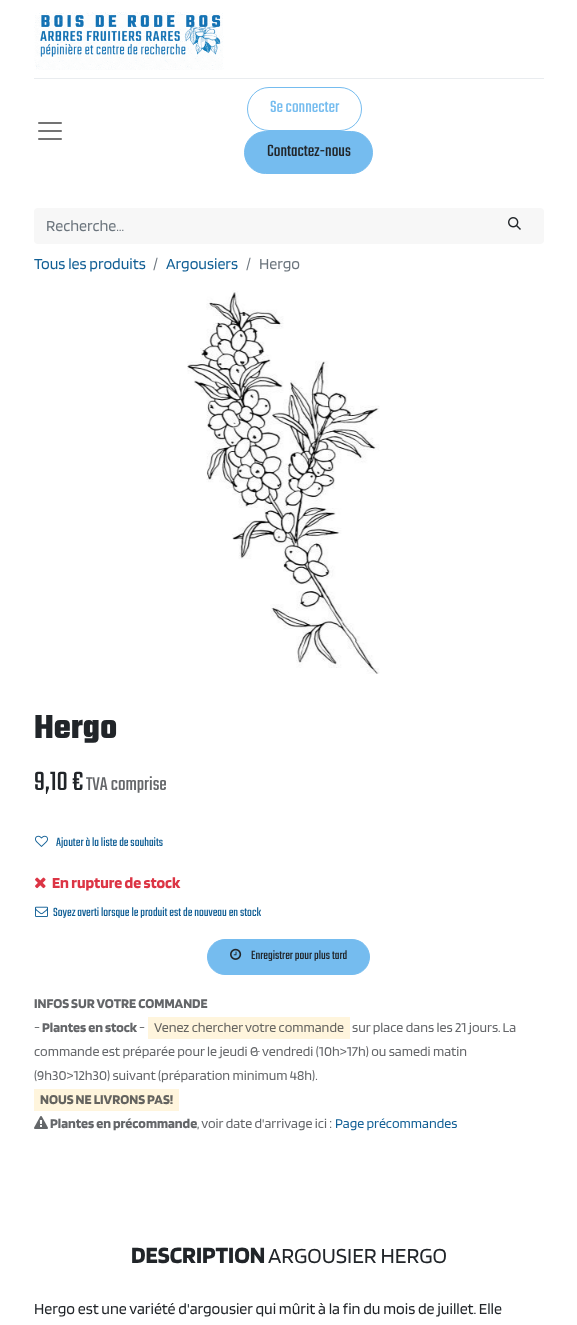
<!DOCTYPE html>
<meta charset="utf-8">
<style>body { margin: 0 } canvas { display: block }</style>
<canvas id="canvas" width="577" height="1325"></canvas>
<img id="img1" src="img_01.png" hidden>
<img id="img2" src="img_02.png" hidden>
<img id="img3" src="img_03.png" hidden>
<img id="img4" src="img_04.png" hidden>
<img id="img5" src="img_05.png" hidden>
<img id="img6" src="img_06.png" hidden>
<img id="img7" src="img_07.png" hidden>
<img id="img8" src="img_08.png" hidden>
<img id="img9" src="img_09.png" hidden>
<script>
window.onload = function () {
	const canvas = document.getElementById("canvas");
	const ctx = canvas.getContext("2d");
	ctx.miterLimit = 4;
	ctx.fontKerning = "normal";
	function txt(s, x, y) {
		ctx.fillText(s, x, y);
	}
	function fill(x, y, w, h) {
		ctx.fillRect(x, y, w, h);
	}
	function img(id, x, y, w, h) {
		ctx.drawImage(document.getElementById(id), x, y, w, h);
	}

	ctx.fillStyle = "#FFFFFF";
	fill(0, 0, 577, 1325);
	img("img1", 34, 11, 190, 59);
	ctx.fillStyle = "#E9ECEF";
	fill(34, 78, 510, 1);
	img("img2", 38, 122, 24, 18);
	ctx.beginPath();
	ctx.roundRect(247.5, 87.5, 114, 43, 21.5);
	ctx.strokeStyle = "#75BCEF";
	ctx.stroke();
	ctx.fillStyle = "#75BCEF";
	ctx.beginPath();
	ctx.roundRect(244.5, 131.5, 128, 42, 21);
	ctx.fill();
	ctx.stroke();
	ctx.fillStyle = "#F7F7F7";
	ctx.beginPath();
	ctx.roundRect(34, 208, 452, 36, [4, 0, 0, 4]);
	ctx.fill();
	ctx.beginPath();
	ctx.roundRect(485, 208, 59, 36, [0, 4, 4, 0]);
	ctx.fill();
	img("img3", 508, 217, 13, 13);
	img("img4", 187, 290, 193, 384);
	img("img5", 35, 835, 13, 12);
	img("img6", 35, 877, 11, 12);
	img("img7", 35, 906, 13, 11);
	ctx.fillStyle = "#75BCEF";
	ctx.beginPath();
	ctx.roundRect(207.5, 939.5, 162, 35, 17.5);
	ctx.fill();
	ctx.stroke();
	img("img8", 230, 948, 12, 12);
	ctx.fillStyle = "#FFF5DD";
	fill(148, 1017, 202, 22);
	fill(34, 1089, 145, 22);
	img("img9", 34, 1116, 14, 13);
	ctx.font = "18px Teko";
	ctx.fillStyle = "#75BCEF";
	txt("Se connecter", 270, 112);
	ctx.fillStyle = "#212529";
	txt("Contactez-nous", 267, 156);
	ctx.font = "16px Blinker";
	ctx.fillStyle = "#6C757D";
	txt("Recherche…", 46, 231);
	ctx.fillStyle = "#115F95";
	txt("Tous les produits", 34, 269);
	ctx.fillStyle = "#6C757D";
	txt("/", 153, 269);
	ctx.fillStyle = "#115F95";
	txt("Argousiers", 166, 269);
	ctx.fillStyle = "#6C757D";
	txt("/", 246, 269);
	txt("Hergo", 259, 269);
	ctx.font = "bold 36px Teko";
	ctx.fillStyle = "#212529";
	txt("Hergo", 34, 738);
	ctx.font = "29px Teko";
	txt("9,10 €", 34, 790);
	ctx.font = "20.5px Teko";
	ctx.fillStyle = "#646669";
	txt("TVA comprise", 86, 790);
	ctx.font = "13px Teko";
	ctx.fillStyle = "#115F95";
	txt("Ajouter à la liste de souhaits", 56, 846);
	ctx.font = "bold 16px Blinker";
	ctx.fillStyle = "#DC3545";
	txt("En rupture de stock", 52, 888);
	ctx.font = "13px Teko";
	ctx.fillStyle = "#115F95";
	txt("Soyez averti lorsque le produit est de nouveau en stock", 53, 916);
	ctx.fillStyle = "#212529";
	txt("Enregistrer pour plus tard", 251, 959);
	ctx.font = "bold 14px Blinker";
	ctx.fillStyle = "#646669";
	txt("INFOS SUR VOTRE COMMANDE", 34, 1008);
	ctx.font = "14px Blinker";
	txt("-", 34, 1032);
	ctx.font = "bold 14px Blinker";
	txt("Plantes en stock", 42, 1032);
	ctx.font = "14px Blinker";
	txt("-", 139, 1032);
	ctx.fillStyle = "#64635F";
	txt("Venez chercher votre commande", 154, 1032);
	ctx.fillStyle = "#646669";
	txt("sur place dans les 21 jours. La", 352, 1032);
	txt("commande est préparée pour le jeudi & vendredi (10h>17h) ou samedi matin", 34, 1056);
	txt("(9h30>12h30) suivant (préparation minimum 48h).", 34, 1080);
	ctx.font = "bold 14px Blinker";
	ctx.fillStyle = "#64635F";
	txt("NOUS NE LIVRONS PAS!", 40, 1104);
	ctx.fillStyle = "#646669";
	txt("Plantes en précommande", 50, 1128);
	ctx.font = "14px Blinker";
	txt(", voir date d'arrivage ici :", 197, 1128);
	ctx.fillStyle = "#115F95";
	txt("Page précommandes", 335, 1128);
	ctx.font = "bold 24.25px Blinker";
	ctx.fillStyle = "#212529";
	txt("DESCRIPTION", 131, 1263);
	ctx.font = "22.25px Blinker";
	txt("ARGOUSIER HERGO", 268, 1263);
	ctx.font = "16px Blinker";
	txt("Hergo est une variété d'argousier qui mûrit à la fin du mois de juillet. Elle", 34, 1314);
};
</script>
